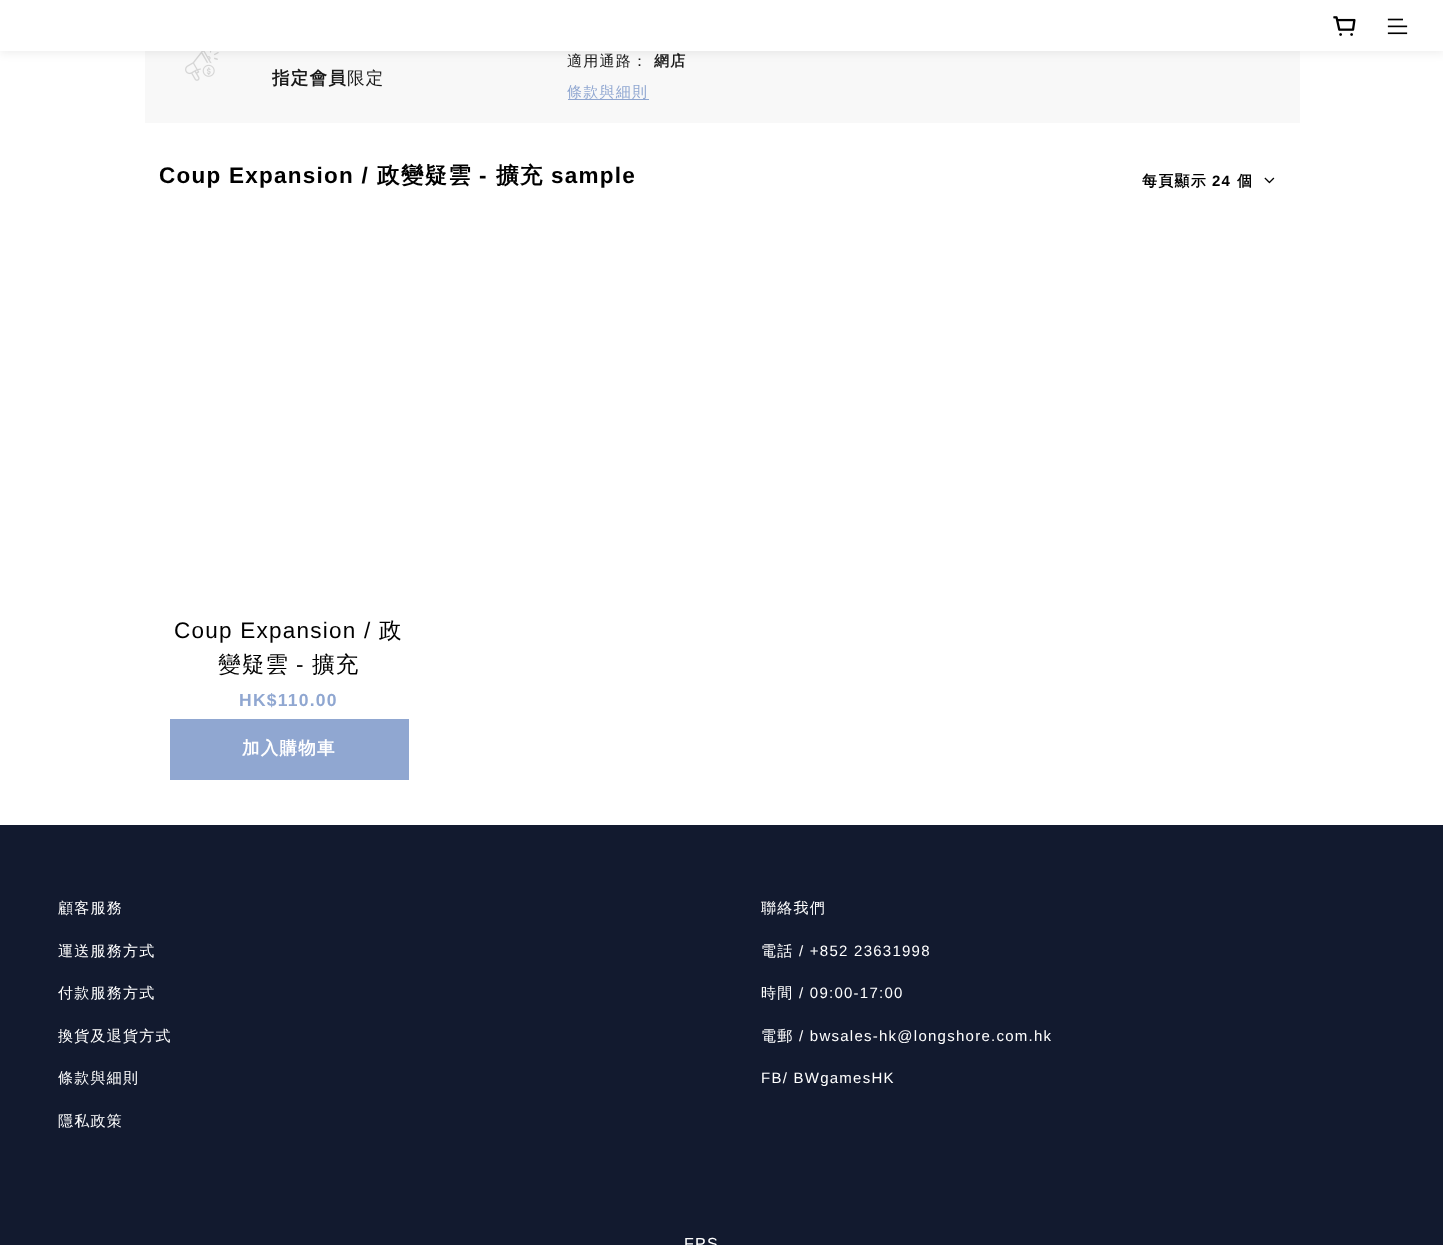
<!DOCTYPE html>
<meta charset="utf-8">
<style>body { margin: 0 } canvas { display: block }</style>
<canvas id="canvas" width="1443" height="1245"></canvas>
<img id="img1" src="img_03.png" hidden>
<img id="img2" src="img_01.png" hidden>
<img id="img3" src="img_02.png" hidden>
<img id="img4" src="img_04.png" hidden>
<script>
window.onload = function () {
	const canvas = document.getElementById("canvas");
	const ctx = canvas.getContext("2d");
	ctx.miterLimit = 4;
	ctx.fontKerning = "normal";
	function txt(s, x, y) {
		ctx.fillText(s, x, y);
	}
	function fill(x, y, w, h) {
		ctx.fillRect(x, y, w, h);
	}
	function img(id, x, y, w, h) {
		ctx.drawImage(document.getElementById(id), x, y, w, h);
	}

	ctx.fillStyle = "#FFFFFF";
	fill(0, 0, 1443, 1245);
	ctx.fillStyle = "#F8F8F8";
	fill(145, 51, 1155, 72);
	img("img1", 185, 51, 34, 30);
	ctx.fillStyle = "rgba(0, 0, 0, 0.06)";
	ctx.filter = "blur(4px)";
	ctx.beginPath();
	ctx.rect(0, 3, 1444, 51);
	ctx.fill();
	ctx.filter = "none";
	ctx.fillStyle = "#FFFFFF";
	fill(0, 0, 1443, 51);
	img("img2", 1333, 16, 23, 20);
	img("img3", 1387, 18, 21, 17);
	ctx.fillStyle = "#90A7D1";
	fill(568, 99, 81, 1);
	img("img4", 1264, 177, 11, 7);
	fill(170, 719, 239, 61);
	ctx.fillStyle = "#121A2F";
	fill(0, 825, 1443, 420);
	ctx.letterSpacing = "1.25px";
	ctx.font = "bold 17.5px WenQuanYi Zen Hei";
	ctx.fillStyle = "#191919";
	txt("指定會員", 272, 84);
	ctx.font = "500 17.5px WenQuanYi Zen Hei";
	txt("限定", 347, 84);
	ctx.font = "500 15px WenQuanYi Zen Hei";
	txt("適用通路：", 567, 66);
	ctx.font = "bold 15px WenQuanYi Zen Hei";
	txt("網店", 654, 66);
	ctx.font = "500 15px WenQuanYi Zen Hei";
	ctx.fillStyle = "#90A7D1";
	txt("條款與細則", 567, 97);
	ctx.font = "bold 22.5px Liberation Sans";
	ctx.fillStyle = "#000000";
	txt("Coup Expansion /", 159, 183);
	ctx.font = "bold 22.5px WenQuanYi Zen Hei";
	txt("政變疑雲", 377, 183);
	ctx.font = "bold 22.5px Liberation Sans";
	txt("-", 479, 183);
	ctx.font = "bold 22.5px WenQuanYi Zen Hei";
	txt("擴充", 496, 183);
	ctx.font = "bold 22.5px Liberation Sans";
	txt("sample", 551, 183);
	ctx.font = "bold 15px WenQuanYi Zen Hei";
	txt("每頁顯示", 1142, 186);
	ctx.font = "bold 15px Liberation Sans";
	txt("24", 1212, 186);
	ctx.font = "bold 15px WenQuanYi Zen Hei";
	txt("個", 1237, 186);
	ctx.font = "22.5px Liberation Sans";
	txt("Coup Expansion /", 174, 638);
	ctx.font = "500 22.5px WenQuanYi Zen Hei";
	txt("政", 379, 638);
	txt("變疑雲", 218, 672);
	ctx.font = "22.5px Liberation Sans";
	txt("-", 296, 672);
	ctx.font = "500 22.5px WenQuanYi Zen Hei";
	txt("擴充", 312, 672);
	ctx.font = "bold 17.5px Liberation Sans";
	ctx.fillStyle = "#90A7D1";
	txt("HK$110.00", 239, 706);
	ctx.font = "bold 17.5px WenQuanYi Zen Hei";
	ctx.fillStyle = "#FFFFFF";
	txt("加入購物車", 242, 754);
	ctx.font = "500 15px WenQuanYi Zen Hei";
	txt("顧客服務", 58, 913);
	txt("運送服務方式", 58, 956);
	txt("付款服務方式", 58, 998);
	txt("換貨及退貨方式", 58, 1041);
	txt("條款與細則", 58, 1083);
	txt("隱私政策", 58, 1126);
	txt("聯絡我們", 761, 913);
	txt("電話", 761, 956);
	ctx.font = "15px Liberation Sans";
	txt("/ +852 23631998", 799, 956);
	ctx.font = "500 15px WenQuanYi Zen Hei";
	txt("時間", 761, 998);
	ctx.font = "15px Liberation Sans";
	txt("/ 09:00-17:00", 799, 998);
	ctx.font = "500 15px WenQuanYi Zen Hei";
	txt("電郵", 761, 1041);
	ctx.font = "15px Liberation Sans";
	txt("/ bwsales-hk@longshore.com.hk", 799, 1041);
	txt("FB/ BWgamesHK", 761, 1083);
	ctx.font = "16px Liberation Sans";
	txt("FPS", 684, 1249);
};
</script>
